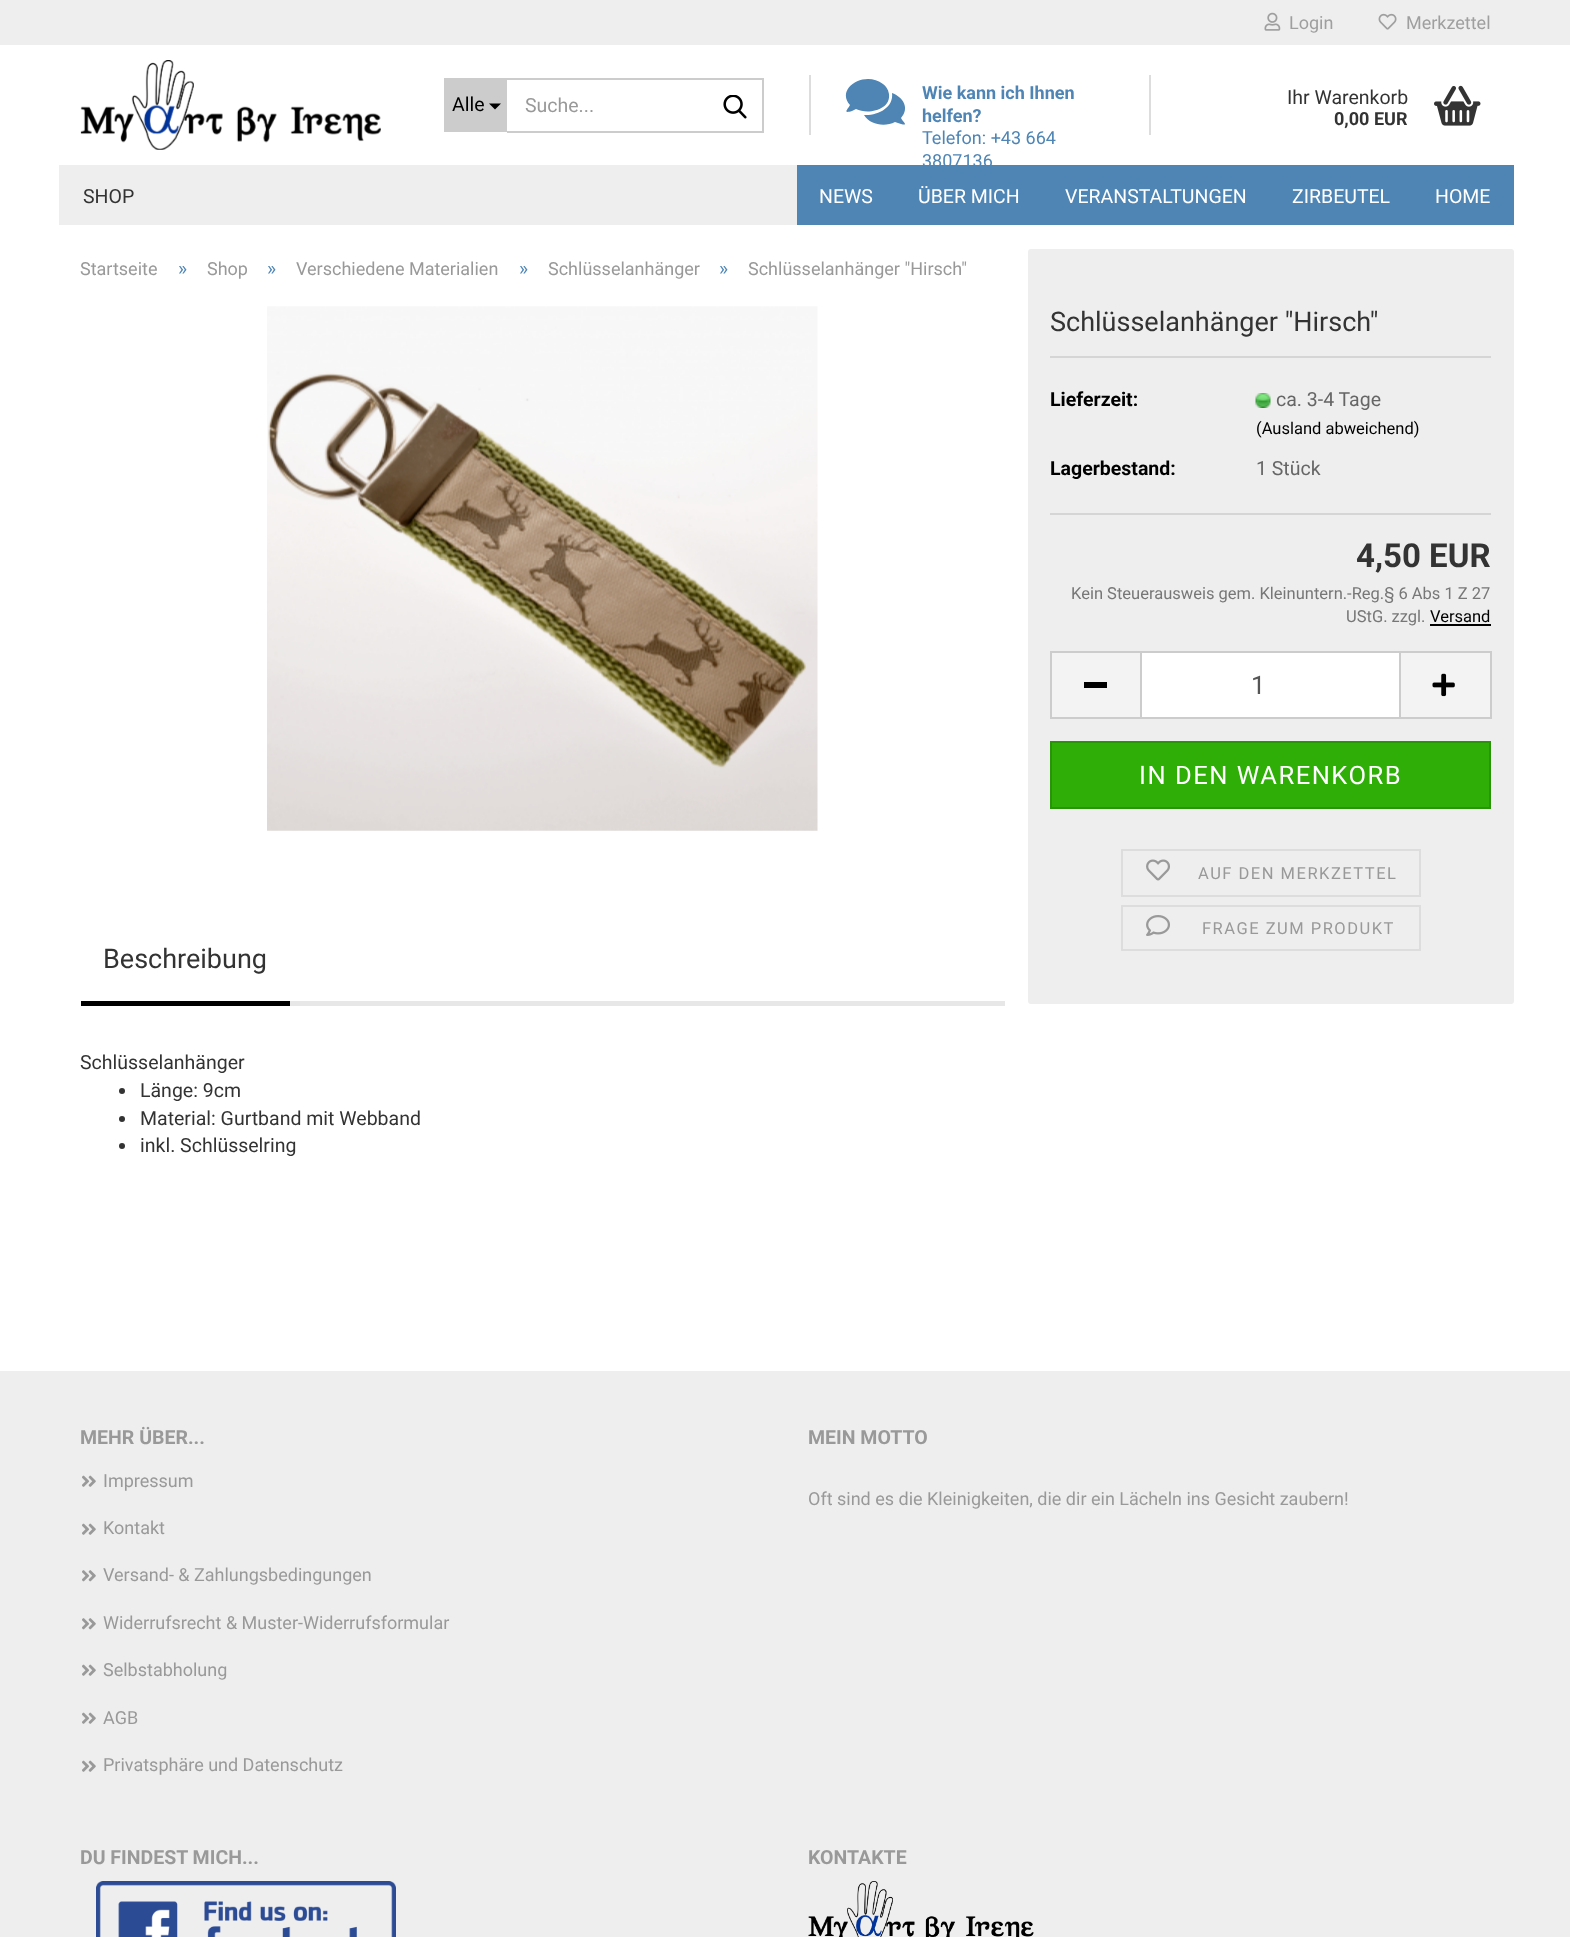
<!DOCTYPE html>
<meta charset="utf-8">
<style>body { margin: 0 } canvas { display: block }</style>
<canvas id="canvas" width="1570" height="1937"></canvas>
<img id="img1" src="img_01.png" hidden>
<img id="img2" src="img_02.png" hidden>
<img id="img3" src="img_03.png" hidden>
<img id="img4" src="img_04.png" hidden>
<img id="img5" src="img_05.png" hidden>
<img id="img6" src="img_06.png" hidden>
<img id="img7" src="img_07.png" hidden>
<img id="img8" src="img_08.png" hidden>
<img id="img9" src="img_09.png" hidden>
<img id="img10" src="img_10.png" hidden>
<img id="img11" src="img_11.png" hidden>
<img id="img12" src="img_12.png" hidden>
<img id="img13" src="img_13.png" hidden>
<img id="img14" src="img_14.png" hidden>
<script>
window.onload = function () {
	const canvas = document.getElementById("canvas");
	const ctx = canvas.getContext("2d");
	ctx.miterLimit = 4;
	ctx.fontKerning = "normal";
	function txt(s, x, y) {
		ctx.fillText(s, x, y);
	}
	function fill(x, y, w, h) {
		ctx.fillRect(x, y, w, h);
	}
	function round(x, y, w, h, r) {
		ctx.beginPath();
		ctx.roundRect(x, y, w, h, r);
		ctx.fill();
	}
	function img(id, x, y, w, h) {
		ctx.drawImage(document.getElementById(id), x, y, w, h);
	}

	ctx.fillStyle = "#FFFFFF";
	fill(0, 0, 1570, 1937);
	ctx.fillStyle = "#EEEEEE";
	fill(0, 0, 1570, 45);
	img("img1", 1264, 12, 17, 19);
	img("img2", 1378, 13, 19, 17);
	img("img3", 80, 60, 301, 90);
	ctx.fillStyle = "#CCCCCC";
	fill(444, 78, 63, 54);
	ctx.fillStyle = "#000000";
	ctx.beginPath();
	ctx.moveTo(489, 103.5);
	ctx.lineTo(501, 103.5);
	ctx.lineTo(495, 109.5);
	ctx.closePath();
	ctx.fill();
	ctx.fillStyle = "#CCCCCC";
	fill(507, 78, 257, 2);
	fill(762, 78, 2, 54);
	fill(507, 131, 257, 2);
	img("img4", 723, 95, 24, 24);
	ctx.fillStyle = "#DDDDDD";
	fill(809, 75, 2, 60);
	ctx.fillStyle = "#4E85B5";
	ctx.beginPath();
	ctx.moveTo(883, 84);
	ctx.bezierCurveTo(886, 86, 888, 89, 889, 94);
	ctx.bezierCurveTo(891, 110, 868, 115, 856, 109);
	ctx.lineTo(852, 111);
	ctx.bezierCurveTo(842, 114, 848, 109, 850, 105);
	ctx.bezierCurveTo(835, 88, 865, 70, 883, 84);
	ctx.closePath();
	ctx.moveTo(901, 118);
	ctx.bezierCurveTo(903, 122, 909, 126, 901, 124);
	ctx.lineTo(895, 122);
	ctx.bezierCurveTo(885, 127, 870, 125, 864, 115);
	ctx.bezierCurveTo(877, 116, 894, 108, 892, 93);
	ctx.bezierCurveTo(903, 97, 910, 108, 901, 118);
	ctx.closePath();
	ctx.fill();
	ctx.fillStyle = "#DDDDDD";
	fill(1149, 75, 2, 60);
	img("img5", 1434, 85, 47, 41);
	ctx.fillStyle = "#EEEEEE";
	fill(59, 165, 738, 60);
	ctx.fillStyle = "#4E85B5";
	fill(797, 165, 717, 60);
	img("img6", 267, 306, 551, 525);
	ctx.fillStyle = "#EEEEEE";
	round(1028, 249, 486, 755, 3);
	ctx.fillStyle = "#D5D5D5";
	fill(1050, 356, 441, 2);
	fill(1050, 513, 441, 2);
	img("img7", 1255, 393, 16, 15);
	ctx.fillStyle = "#000000";
	fill(1430, 624, 61, 2);
	ctx.fillStyle = "#F3F3F3";
	fill(1052, 653, 88, 64);
	ctx.fillStyle = "#CCCCCC";
	fill(1050, 651, 90, 2);
	fill(1050, 717, 90, 2);
	fill(1050, 651, 2, 68);
	ctx.fillStyle = "#000000";
	fill(1084, 682, 23, 6);
	ctx.fillStyle = "#FFFFFF";
	ctx.beginPath();
	ctx.rect(1141, 652, 259, 66);
	ctx.fill();
	ctx.strokeStyle = "#CCCCCC";
	ctx.lineWidth = 2;
	ctx.stroke();
	ctx.fillStyle = "#F3F3F3";
	fill(1401, 653, 89, 64);
	ctx.fillStyle = "#CCCCCC";
	fill(1401, 651, 90, 2);
	fill(1490, 651, 2, 68);
	fill(1401, 717, 90, 2);
	img("img8", 1432, 673, 23, 24);
	ctx.fillStyle = "#2EAE06";
	ctx.beginPath();
	ctx.rect(1051, 742, 439, 66);
	ctx.fill();
	ctx.strokeStyle = "#279505";
	ctx.stroke();
	ctx.strokeStyle = "#DDDDDD";
	ctx.strokeRect(1122, 850, 298, 46);
	img("img9", 1146, 859, 24, 22);
	ctx.strokeRect(1122, 906, 298, 44);
	img("img10", 1146, 915, 24, 21);
	ctx.fillStyle = "#E7E7E7";
	fill(290, 1001, 715, 5);
	ctx.fillStyle = "#000000";
	fill(81, 1001, 209, 5);
	ctx.fillStyle = "#333333";
	ctx.beginPath();
	ctx.arc(122, 1091, 3, 0, Math.PI * 2);
	ctx.fill();
	ctx.beginPath();
	ctx.arc(122, 1119, 3, 0, Math.PI * 2);
	ctx.fill();
	ctx.beginPath();
	ctx.arc(122, 1146, 3, 0, Math.PI * 2);
	ctx.fill();
	ctx.fillStyle = "#EEEEEE";
	fill(0, 1371, 1570, 566);
	img("img11", 82, 1475, 14, 12);
	img("img11", 82, 1523, 14, 12);
	img("img12", 82, 1570, 14, 12);
	img("img12", 82, 1618, 14, 12);
	img("img11", 82, 1664, 14, 12);
	img("img11", 82, 1712, 14, 12);
	img("img11", 82, 1760, 14, 12);
	img("img13", 96, 1881, 300, 56);
	img("img14", 808, 1881, 226, 56);
	ctx.font = "18px Roboto";
	ctx.fillStyle = "#9F9F9F";
	txt("Login", 1289, 29);
	txt("Merkzettel", 1406, 29);
	ctx.font = "19.5px Roboto";
	ctx.fillStyle = "#000000";
	txt("Alle", 452, 111);
	ctx.fillStyle = "#999999";
	txt("Suche...", 525, 112);
	ctx.font = "bold 18px Roboto";
	ctx.fillStyle = "#4E85B5";
	txt("Wie kann ich Ihnen", 922, 99);
	txt("helfen?", 922, 122);
	ctx.font = "18px Roboto";
	txt("Telefon: +43 664", 922, 144);
	txt("3807136", 922, 167);
	ctx.font = "19.5px Roboto";
	ctx.fillStyle = "#333333";
	txt("Ihr Warenkorb", 1287, 104);
	ctx.font = "bold 18px Roboto";
	txt("0,00 EUR", 1334, 125);
	ctx.font = "19.5px Roboto";
	txt("SHOP", 83, 203);
	ctx.fillStyle = "#FFFFFF";
	txt("NEWS", 819, 203);
	txt("ÜBER MICH", 918, 203);
	txt("VERANSTALTUNGEN", 1065, 203);
	txt("ZIRBEUTEL", 1292, 203);
	txt("HOME", 1435, 203);
	ctx.font = "18px Roboto";
	ctx.fillStyle = "#999999";
	txt("Startseite", 80, 275);
	ctx.font = "19.5px Roboto";
	ctx.fillStyle = "#4E85B5";
	txt("»", 178, 275);
	ctx.font = "18px Roboto";
	ctx.fillStyle = "#999999";
	txt("Shop", 207, 275);
	ctx.font = "19.5px Roboto";
	ctx.fillStyle = "#4E85B5";
	txt("»", 267, 275);
	ctx.font = "18px Roboto";
	ctx.fillStyle = "#999999";
	txt("Verschiedene Materialien", 296, 275);
	ctx.font = "19.5px Roboto";
	ctx.fillStyle = "#4E85B5";
	txt("»", 519, 275);
	ctx.font = "18px Roboto";
	ctx.fillStyle = "#999999";
	txt("Schlüsselanhänger", 548, 275);
	ctx.font = "19.5px Roboto";
	ctx.fillStyle = "#4E85B5";
	txt("»", 719, 275);
	ctx.font = "18px Roboto";
	ctx.fillStyle = "#999999";
	txt("Schlüsselanhänger \"Hirsch\"", 748, 275);
	ctx.font = "27px Roboto";
	ctx.fillStyle = "#333333";
	txt("Schlüsselanhänger \"Hirsch\"", 1050, 331);
	ctx.font = "bold 19.5px Roboto";
	ctx.fillStyle = "#000000";
	txt("Lieferzeit:", 1050, 406);
	ctx.font = "19.5px Roboto";
	ctx.fillStyle = "#666666";
	txt("ca. 3-4 Tage", 1276, 406);
	ctx.font = "16.5px Roboto";
	ctx.fillStyle = "#000000";
	txt("(Ausland abweichend)", 1256, 434);
	ctx.font = "bold 19.5px Roboto";
	txt("Lagerbestand:", 1050, 475);
	ctx.font = "19.5px Roboto";
	ctx.fillStyle = "#666666";
	txt("1 Stück", 1256, 475);
	ctx.font = "bold 33px Roboto";
	ctx.fillStyle = "#333333";
	txt("4,50 EUR", 1356, 567);
	ctx.font = "16.5px Roboto";
	ctx.fillStyle = "#777777";
	txt("Kein Steuerausweis gem. Kleinuntern.-Reg.§ 6 Abs 1 Z 27", 1071, 599);
	txt("UStG. zzgl.", 1346, 622);
	ctx.fillStyle = "#000000";
	txt("Versand", 1430, 622);
	ctx.font = "25.5px Roboto";
	ctx.fillStyle = "#555555";
	txt("1", 1251, 694);
	ctx.letterSpacing = "1.5px";
	ctx.fillStyle = "#FFFFFF";
	txt("IN DEN WARENKORB", 1139, 784);
	ctx.font = "16.5px Roboto";
	ctx.fillStyle = "#999999";
	txt("AUF DEN MERKZETTEL", 1198, 879);
	txt("FRAGE ZUM PRODUKT", 1202, 934);
	ctx.letterSpacing = "0px";
	ctx.font = "27px Roboto";
	ctx.fillStyle = "#333333";
	txt("Beschreibung", 103, 968);
	ctx.font = "19.5px Roboto";
	txt("Schlüsselanhänger", 80, 1069);
	txt("Länge: 9cm", 140, 1097);
	txt("Material: Gurtband mit Webband", 140, 1125);
	txt("inkl. Schlüsselring", 140, 1152);
	ctx.font = "bold 19.5px Roboto";
	ctx.fillStyle = "#999999";
	txt("MEHR ÜBER...", 80, 1444);
	ctx.font = "18px Roboto";
	txt("Impressum", 103, 1487);
	txt("Kontakt", 103, 1534);
	txt("Versand- & Zahlungsbedingungen", 103, 1581);
	txt("Widerrufsrecht & Muster-Widerrufsformular", 103, 1629);
	txt("Selbstabholung", 103, 1676);
	txt("AGB", 103, 1724);
	txt("Privatsphäre und Datenschutz", 103, 1771);
	ctx.font = "bold 19.5px Roboto";
	txt("MEIN MOTTO", 808, 1444);
	ctx.font = "18px Roboto";
	txt("Oft sind es die Kleinigkeiten, die dir ein Lächeln ins Gesicht zaubern!", 808, 1505);
	ctx.font = "bold 19.5px Roboto";
	txt("DU FINDEST MICH...", 80, 1864);
	txt("KONTAKTE", 808, 1864);
};
</script>
